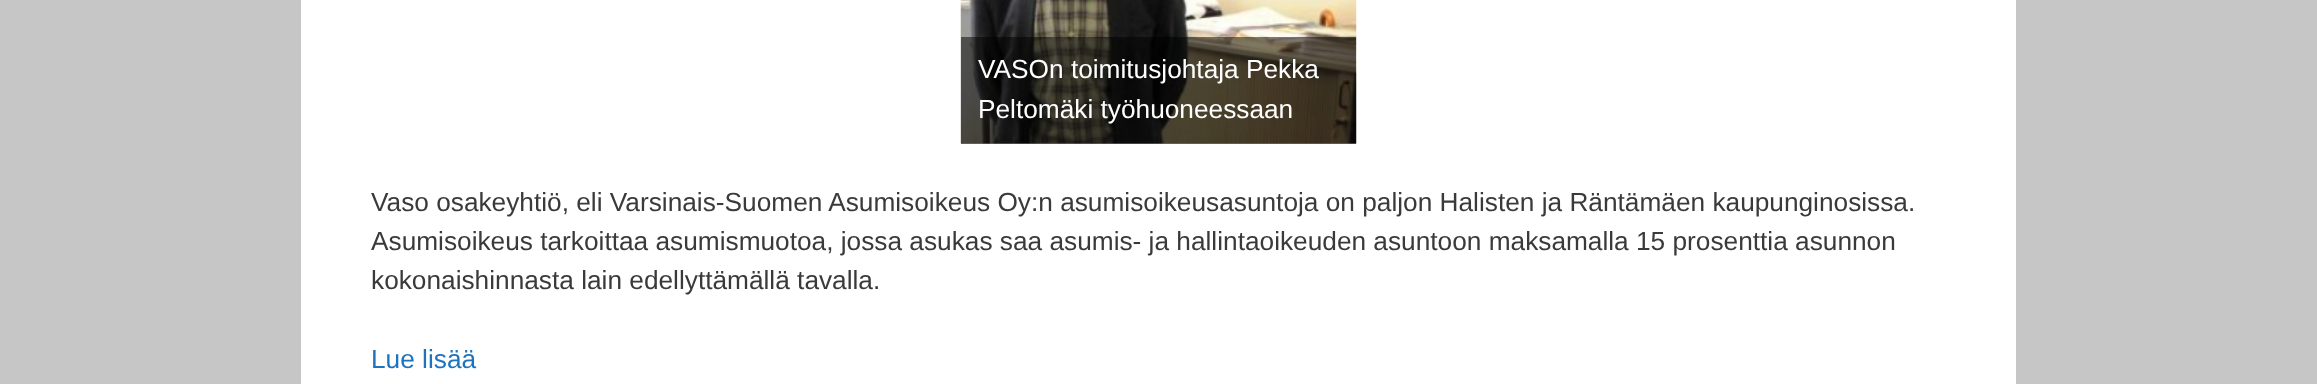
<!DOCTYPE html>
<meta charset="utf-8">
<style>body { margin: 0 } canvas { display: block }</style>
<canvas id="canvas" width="2317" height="384"></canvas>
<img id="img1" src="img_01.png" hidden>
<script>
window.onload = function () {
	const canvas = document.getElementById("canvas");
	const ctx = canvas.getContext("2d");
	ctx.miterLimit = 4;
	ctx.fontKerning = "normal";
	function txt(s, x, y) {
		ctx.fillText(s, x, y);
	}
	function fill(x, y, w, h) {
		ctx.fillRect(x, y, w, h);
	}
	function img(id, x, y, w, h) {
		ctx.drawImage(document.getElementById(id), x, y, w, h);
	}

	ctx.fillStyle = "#C6C6C6";
	fill(0, 0, 2317, 384);
	ctx.fillStyle = "#FFFFFF";
	fill(301, 0, 1715, 384);
	img("img1", 960, 0, 397, 144);
	ctx.fillStyle = "rgba(0, 0, 0, 0.5)";
	fill(961, 37, 395, 107);
	ctx.font = "26.25px Liberation Sans";
	ctx.fillStyle = "#FFFFFF";
	txt("VASOn toimitusjohtaja Pekka", 978, 78);
	txt("Peltomäki työhuoneessaan", 978, 118);
	ctx.fillStyle = "#3A3A3A";
	txt("Vaso osakeyhtiö, eli Varsinais-Suomen Asumisoikeus Oy:n asumisoikeusasuntoja on paljon Halisten ja Räntämäen kaupunginosissa.", 371, 211);
	txt("Asumisoikeus tarkoittaa asumismuotoa, jossa asukas saa asumis- ja hallintaoikeuden asuntoon maksamalla 15 prosenttia asunnon", 371, 250);
	txt("kokonaishinnasta lain edellyttämällä tavalla.", 371, 289);
	ctx.fillStyle = "#1E73BE";
	txt("Lue lisää", 371, 368);
};
</script>
